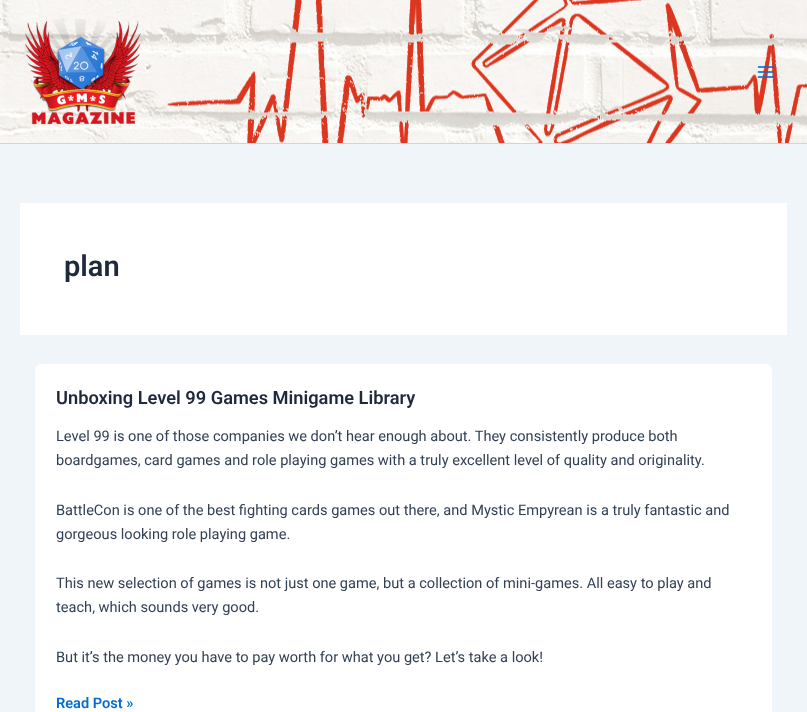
<!DOCTYPE html>
<meta charset="utf-8">
<style>body { margin: 0 } canvas { display: block }</style>
<canvas id="canvas" width="807" height="712"></canvas>
<img id="img1" src="img_01.png" hidden>
<img id="img2" src="img_02.png" hidden>
<img id="img3" src="img_03.png" hidden>
<script>
window.onload = function () {
	const canvas = document.getElementById("canvas");
	const ctx = canvas.getContext("2d");
	ctx.miterLimit = 4;
	ctx.fontKerning = "normal";
	function txt(s, x, y) {
		ctx.fillText(s, x, y);
	}
	function fill(x, y, w, h) {
		ctx.fillRect(x, y, w, h);
	}
	function round(x, y, w, h, r) {
		ctx.beginPath();
		ctx.roundRect(x, y, w, h, r);
		ctx.fill();
	}
	function img(id, x, y, w, h) {
		ctx.drawImage(document.getElementById(id), x, y, w, h);
	}

	ctx.fillStyle = "#F0F5FA";
	fill(0, 0, 807, 712);
	img("img1", 0, 0, 807, 143);
	ctx.fillStyle = "#D1D5DB";
	fill(0, 143, 807, 1);
	img("img2", 24, 19, 117, 107);
	img("img3", 757, 66, 18, 12);
	ctx.fillStyle = "#FFFFFF";
	fill(20, 203, 767, 132);
	round(35, 364, 737, 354, 6);
	ctx.font = "600 29px Roboto";
	ctx.fillStyle = "#1E293B";
	txt("plan", 64, 276);
	ctx.font = "600 18.25px Roboto";
	txt("Unboxing Level 99 Games Minigame Library", 56, 404);
	ctx.font = "14.6px Roboto";
	ctx.fillStyle = "#334155";
	txt("Level 99 is one of those companies we don’t hear enough about. They consistently produce both", 56, 441);
	txt("boardgames, card games and role playing games with a truly excellent level of quality and originality.", 56, 465);
	txt("BattleCon is one of the best fighting cards games out there, and Mystic Empyrean is a truly fantastic and", 56, 515);
	txt("gorgeous looking role playing game.", 56, 539);
	txt("This new selection of games is not just one game, but a collection of mini-games. All easy to play and", 56, 588);
	txt("teach, which sounds very good.", 56, 612);
	txt("But it’s the money you have to pay worth for what you get? Let’s take a look!", 56, 662);
	ctx.font = "600 14.6px Roboto";
	ctx.fillStyle = "#046BD2";
	txt("Read Post »", 56, 708);
};
</script>
